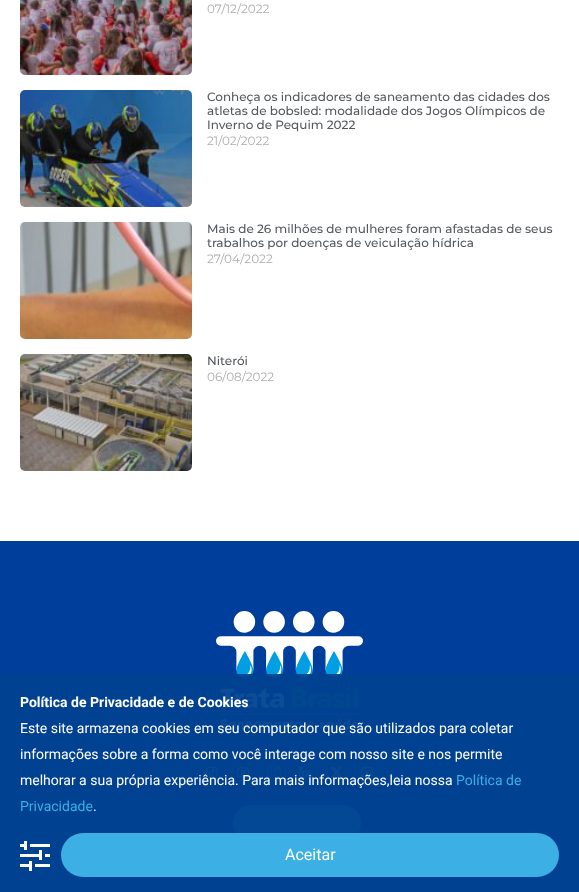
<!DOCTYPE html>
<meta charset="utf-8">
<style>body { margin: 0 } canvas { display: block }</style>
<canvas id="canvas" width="579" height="892"></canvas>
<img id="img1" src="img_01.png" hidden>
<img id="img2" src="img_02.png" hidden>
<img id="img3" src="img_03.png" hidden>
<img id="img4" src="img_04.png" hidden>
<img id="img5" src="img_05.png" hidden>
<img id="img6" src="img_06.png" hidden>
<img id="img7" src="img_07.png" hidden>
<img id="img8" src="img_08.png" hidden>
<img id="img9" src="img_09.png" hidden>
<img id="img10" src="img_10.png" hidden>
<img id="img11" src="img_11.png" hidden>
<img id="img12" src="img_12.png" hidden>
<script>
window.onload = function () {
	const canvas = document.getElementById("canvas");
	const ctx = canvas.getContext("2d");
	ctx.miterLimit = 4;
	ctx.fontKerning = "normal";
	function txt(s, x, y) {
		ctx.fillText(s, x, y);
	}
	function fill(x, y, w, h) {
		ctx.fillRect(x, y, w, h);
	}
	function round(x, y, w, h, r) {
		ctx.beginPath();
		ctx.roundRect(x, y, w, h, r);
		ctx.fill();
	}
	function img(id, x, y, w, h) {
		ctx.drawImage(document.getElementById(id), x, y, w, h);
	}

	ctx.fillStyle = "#FFFFFF";
	fill(0, 0, 579, 892);
	img("img1", 20, 0, 172, 75);
	img("img2", 20, 90, 172, 117);
	img("img3", 20, 222, 172, 117);
	img("img4", 20, 354, 172, 117);
	ctx.fillStyle = "#003E9B";
	fill(0, 541, 579, 351);
	img("img5", 216, 611, 147, 118);
	ctx.fillStyle = "#004290";
	ctx.beginPath();
	ctx.arc(212, 772, 13, 0, Math.PI * 2);
	ctx.fill();
	img("img6", 206, 766, 12, 12);
	ctx.beginPath();
	ctx.arc(243, 772, 13, 0, Math.PI * 2);
	ctx.fill();
	img("img7", 237, 767, 12, 11);
	ctx.beginPath();
	ctx.arc(274, 772, 13, 0, Math.PI * 2);
	ctx.fill();
	img("img8", 267, 765, 14, 14);
	ctx.beginPath();
	ctx.arc(305, 772, 13, 0, Math.PI * 2);
	ctx.fill();
	img("img9", 299, 766, 12, 13);
	ctx.beginPath();
	ctx.arc(336, 772, 13, 0, Math.PI * 2);
	ctx.fill();
	img("img10", 330, 767, 13, 11);
	ctx.beginPath();
	ctx.arc(367, 772, 13, 0, Math.PI * 2);
	ctx.fill();
	img("img11", 361, 766, 12, 12);
	ctx.fillStyle = "#32AFE8";
	round(233, 805, 128, 36, 18);
	ctx.fillStyle = "rgba(0, 66, 144, 0.95)";
	fill(0, 674, 579, 218);
	img("img12", 20, 841, 30, 30);
	ctx.fillStyle = "#3CAFE5";
	round(61, 833, 498, 44, 22);
	ctx.font = "12px Montserrat";
	ctx.fillStyle = "#ADADAD";
	txt("07/12/2022", 207, 13);
	ctx.font = "500 12px Montserrat";
	ctx.fillStyle = "#54595F";
	txt("Conheça os indicadores de saneamento das cidades dos", 207, 101);
	txt("atletas de bobsled: modalidade dos Jogos Olímpicos de", 207, 115);
	txt("Inverno de Pequim 2022", 207, 129);
	ctx.font = "12px Montserrat";
	ctx.fillStyle = "#ADADAD";
	txt("21/02/2022", 207, 145);
	ctx.font = "500 12px Montserrat";
	ctx.fillStyle = "#54595F";
	txt("Mais de 26 milhões de mulheres foram afastadas de seus", 207, 233);
	txt("trabalhos por doenças de veiculação hídrica", 207, 247);
	ctx.font = "12px Montserrat";
	ctx.fillStyle = "#ADADAD";
	txt("27/04/2022", 207, 263);
	ctx.font = "500 12px Montserrat";
	ctx.fillStyle = "#54595F";
	txt("Niterói", 207, 365);
	ctx.font = "12px Montserrat";
	ctx.fillStyle = "#ADADAD";
	txt("06/08/2022", 207, 381);
	ctx.font = "bold 14px Roboto";
	ctx.fillStyle = "#FFFFFF";
	txt("Política de Privacidade e de Cookies", 20, 707);
	ctx.font = "14px Roboto";
	txt("Este site armazena cookies em seu computador que são utilizados para coletar", 20, 733);
	txt("informações sobre a forma como você interage com nosso site e nos permite", 20, 759);
	txt("melhorar a sua própria experiência. Para mais informações,leia nossa", 20, 785);
	ctx.fillStyle = "#3CAFE5";
	txt("Política de", 456, 785);
	txt("Privacidade", 20, 811);
	ctx.fillStyle = "#FFFFFF";
	txt(".", 93, 811);
	ctx.font = "16px Roboto";
	txt("Aceitar", 285, 860);
};
</script>
